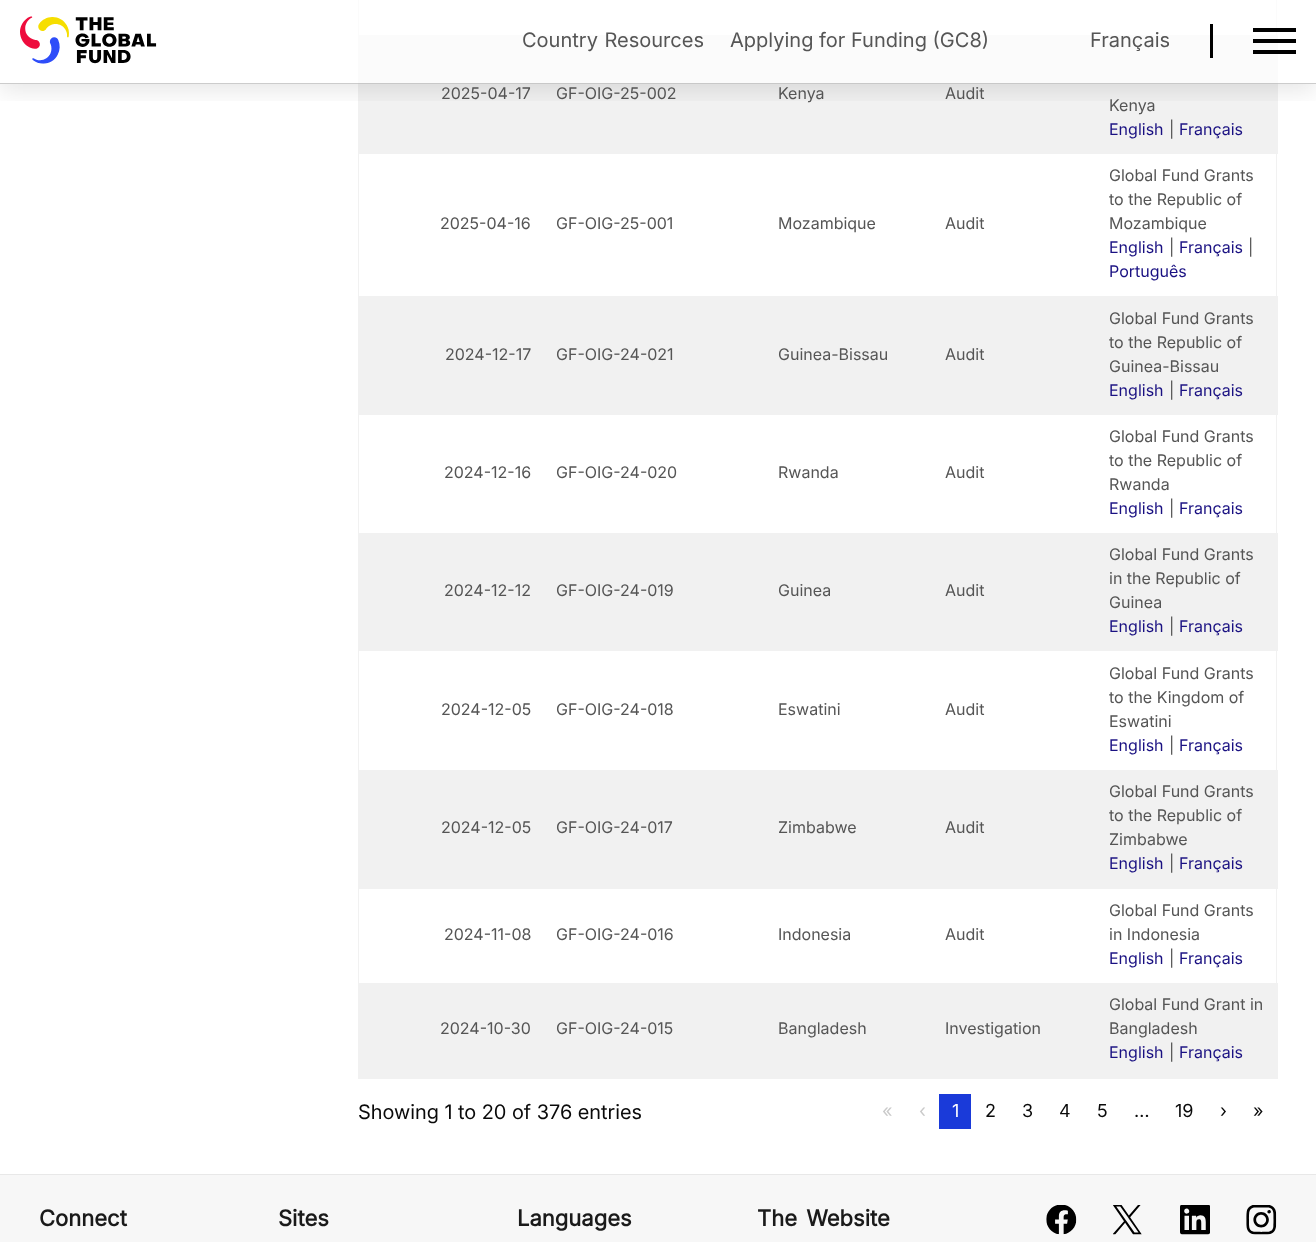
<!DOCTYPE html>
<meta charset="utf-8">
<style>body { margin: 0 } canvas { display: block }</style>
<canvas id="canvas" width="1316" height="1242"></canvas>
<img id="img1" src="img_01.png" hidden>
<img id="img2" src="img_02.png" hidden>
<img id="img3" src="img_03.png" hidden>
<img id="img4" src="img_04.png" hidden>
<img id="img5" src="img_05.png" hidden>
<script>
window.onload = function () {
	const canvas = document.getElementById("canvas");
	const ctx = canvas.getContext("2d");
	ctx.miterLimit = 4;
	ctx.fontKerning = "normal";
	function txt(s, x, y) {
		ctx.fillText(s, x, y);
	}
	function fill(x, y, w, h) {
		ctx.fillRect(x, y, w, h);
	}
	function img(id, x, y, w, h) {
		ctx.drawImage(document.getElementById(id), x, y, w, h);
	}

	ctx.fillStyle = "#FFFFFF";
	fill(0, 0, 1316, 1242);
	ctx.fillStyle = "#F1F1F1";
	fill(359, 35, 919, 119);
	fill(359, 296, 919, 119);
	fill(359, 533, 919, 118);
	fill(359, 770, 919, 119);
	fill(359, 983, 919, 95);
	fill(1276, 0, 1, 1079);
	fill(358, 1078, 920, 1);
	fill(358, 0, 1, 1079);
	ctx.save();
	ctx.beginPath();
	ctx.rect(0, 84, 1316, 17);
	ctx.clip();
	ctx.fillStyle = "rgba(0, 0, 0, 0.1)";
	ctx.filter = "blur(12.5px)";
	ctx.beginPath();
	ctx.rect(0, 6, 1316, 84);
	ctx.fill();
	ctx.filter = "none";
	ctx.restore();
	ctx.fillStyle = "rgba(255, 255, 255, 0.7)";
	fill(13, 0, 1290, 84);
	ctx.fillStyle = "rgba(0, 0, 0, 0.2)";
	fill(0, 83, 1316, 1);
	img("img1", 20, 16, 137, 48);
	ctx.fillStyle = "#000000";
	fill(1210, 24, 3, 34);
	fill(1253, 28, 43, 4);
	fill(1253, 39, 43, 4);
	fill(1253, 50, 43, 4);
	ctx.fillStyle = "#1A3AD9";
	fill(939, 1094, 32, 35);
	ctx.fillStyle = "#F7F7F7";
	fill(0, 1175, 1316, 67);
	ctx.fillStyle = "#E8E8E8";
	fill(0, 1174, 1316, 1);
	img("img2", 1046, 1205, 31, 30);
	img("img3", 1113, 1205, 29, 30);
	img("img4", 1180, 1205, 30, 30);
	img("img5", 1246, 1205, 31, 30);
	ctx.wordSpacing = "1px";
	ctx.font = "20px Inter";
	ctx.fillStyle = "#555555";
	txt("Country Resources", 522, 47);
	ctx.wordSpacing = "0px";
	txt("Applying for Funding (GC8)", 730, 47);
	txt("Français", 1090, 47);
	ctx.font = "16px Inter";
	txt("2025-04-17", 441, 99);
	txt("GF-OIG-25-002", 556, 99);
	txt("Kenya", 778, 99);
	txt("Audit", 945, 99);
	txt("Kenya", 1109, 111);
	ctx.fillStyle = "#1A1182";
	txt("English", 1109, 135);
	ctx.fillStyle = "#555555";
	txt("|", 1169, 135);
	ctx.fillStyle = "#1A1182";
	txt("Français", 1179, 135);
	ctx.fillStyle = "#555555";
	txt("2025-04-16", 440, 229);
	txt("GF-OIG-25-001", 556, 229);
	txt("Mozambique", 778, 229);
	txt("Audit", 945, 229);
	txt("Global Fund Grants", 1109, 181);
	txt("to the Republic of", 1109, 205);
	txt("Mozambique", 1109, 229);
	ctx.fillStyle = "#1A1182";
	txt("English", 1109, 253);
	ctx.fillStyle = "#555555";
	txt("|", 1169, 253);
	ctx.fillStyle = "#1A1182";
	txt("Français", 1179, 253);
	ctx.fillStyle = "#555555";
	txt("|", 1248, 253);
	ctx.fillStyle = "#1A1182";
	txt("Português", 1109, 277);
	ctx.fillStyle = "#555555";
	txt("2024-12-17", 445, 360);
	txt("GF-OIG-24-021", 556, 360);
	txt("Guinea-Bissau", 778, 360);
	txt("Audit", 945, 360);
	txt("Global Fund Grants", 1109, 324);
	txt("to the Republic of", 1109, 348);
	txt("Guinea-Bissau", 1109, 372);
	ctx.fillStyle = "#1A1182";
	txt("English", 1109, 396);
	ctx.fillStyle = "#555555";
	txt("|", 1169, 396);
	ctx.fillStyle = "#1A1182";
	txt("Français", 1179, 396);
	ctx.fillStyle = "#555555";
	txt("2024-12-16", 444, 478);
	txt("GF-OIG-24-020", 556, 478);
	txt("Rwanda", 778, 478);
	txt("Audit", 945, 478);
	txt("Global Fund Grants", 1109, 442);
	txt("to the Republic of", 1109, 466);
	txt("Rwanda", 1109, 490);
	ctx.fillStyle = "#1A1182";
	txt("English", 1109, 514);
	ctx.fillStyle = "#555555";
	txt("|", 1169, 514);
	ctx.fillStyle = "#1A1182";
	txt("Français", 1179, 514);
	ctx.fillStyle = "#555555";
	txt("2024-12-12", 444, 596);
	txt("GF-OIG-24-019", 556, 596);
	txt("Guinea", 778, 596);
	txt("Audit", 945, 596);
	txt("Global Fund Grants", 1109, 560);
	txt("in the Republic of", 1109, 584);
	txt("Guinea", 1109, 608);
	ctx.fillStyle = "#1A1182";
	txt("English", 1109, 632);
	ctx.fillStyle = "#555555";
	txt("|", 1169, 632);
	ctx.fillStyle = "#1A1182";
	txt("Français", 1179, 632);
	ctx.fillStyle = "#555555";
	txt("2024-12-05", 441, 715);
	txt("GF-OIG-24-018", 556, 715);
	txt("Eswatini", 778, 715);
	txt("Audit", 945, 715);
	txt("Global Fund Grants", 1109, 679);
	txt("to the Kingdom of", 1109, 703);
	txt("Eswatini", 1109, 727);
	ctx.fillStyle = "#1A1182";
	txt("English", 1109, 751);
	ctx.fillStyle = "#555555";
	txt("|", 1169, 751);
	ctx.fillStyle = "#1A1182";
	txt("Français", 1179, 751);
	ctx.fillStyle = "#555555";
	txt("2024-12-05", 441, 833);
	txt("GF-OIG-24-017", 556, 833);
	txt("Zimbabwe", 778, 833);
	txt("Audit", 945, 833);
	txt("Global Fund Grants", 1109, 797);
	txt("to the Republic of", 1109, 821);
	txt("Zimbabwe", 1109, 845);
	ctx.fillStyle = "#1A1182";
	txt("English", 1109, 869);
	ctx.fillStyle = "#555555";
	txt("|", 1169, 869);
	ctx.fillStyle = "#1A1182";
	txt("Français", 1179, 869);
	ctx.fillStyle = "#555555";
	txt("2024-11-08", 444, 940);
	txt("GF-OIG-24-016", 556, 940);
	txt("Indonesia", 778, 940);
	txt("Audit", 945, 940);
	txt("Global Fund Grants", 1109, 916);
	txt("in Indonesia", 1109, 940);
	ctx.fillStyle = "#1A1182";
	txt("English", 1109, 964);
	ctx.fillStyle = "#555555";
	txt("|", 1169, 964);
	ctx.fillStyle = "#1A1182";
	txt("Français", 1179, 964);
	ctx.fillStyle = "#555555";
	txt("2024-10-30", 440, 1034);
	txt("GF-OIG-24-015", 556, 1034);
	txt("Bangladesh", 778, 1034);
	txt("Investigation", 945, 1034);
	txt("Global Fund Grant in", 1109, 1010);
	txt("Bangladesh", 1109, 1034);
	ctx.fillStyle = "#1A1182";
	txt("English", 1109, 1058);
	ctx.fillStyle = "#555555";
	txt("|", 1169, 1058);
	ctx.fillStyle = "#1A1182";
	txt("Français", 1179, 1058);
	ctx.font = "20px 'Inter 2'";
	ctx.fillStyle = "#0A0A0A";
	txt("Showing 1 to 20 of 376 entries", 358, 1119);
	ctx.font = "18px Inter";
	ctx.fillStyle = "#CACACA";
	txt("«", 882, 1117);
	txt("‹", 919, 1117);
	ctx.fillStyle = "#FEFEFE";
	txt("1", 952, 1117);
	ctx.fillStyle = "#0A0A0A";
	txt("2", 985, 1117);
	txt("3", 1022, 1117);
	txt("4", 1059, 1117);
	txt("5", 1097, 1117);
	txt("…", 1134, 1117);
	txt("19", 1175, 1117);
	txt("›", 1220, 1117);
	txt("»", 1253, 1117);
	ctx.font = "bold 22px Inter";
	ctx.fillStyle = "#1A1A1A";
	txt("Connect", 39, 1226);
	txt("Sites", 278, 1226);
	txt("Languages", 517, 1226);
	ctx.wordSpacing = "3px";
	txt("The Website", 757, 1226);
};
</script>
